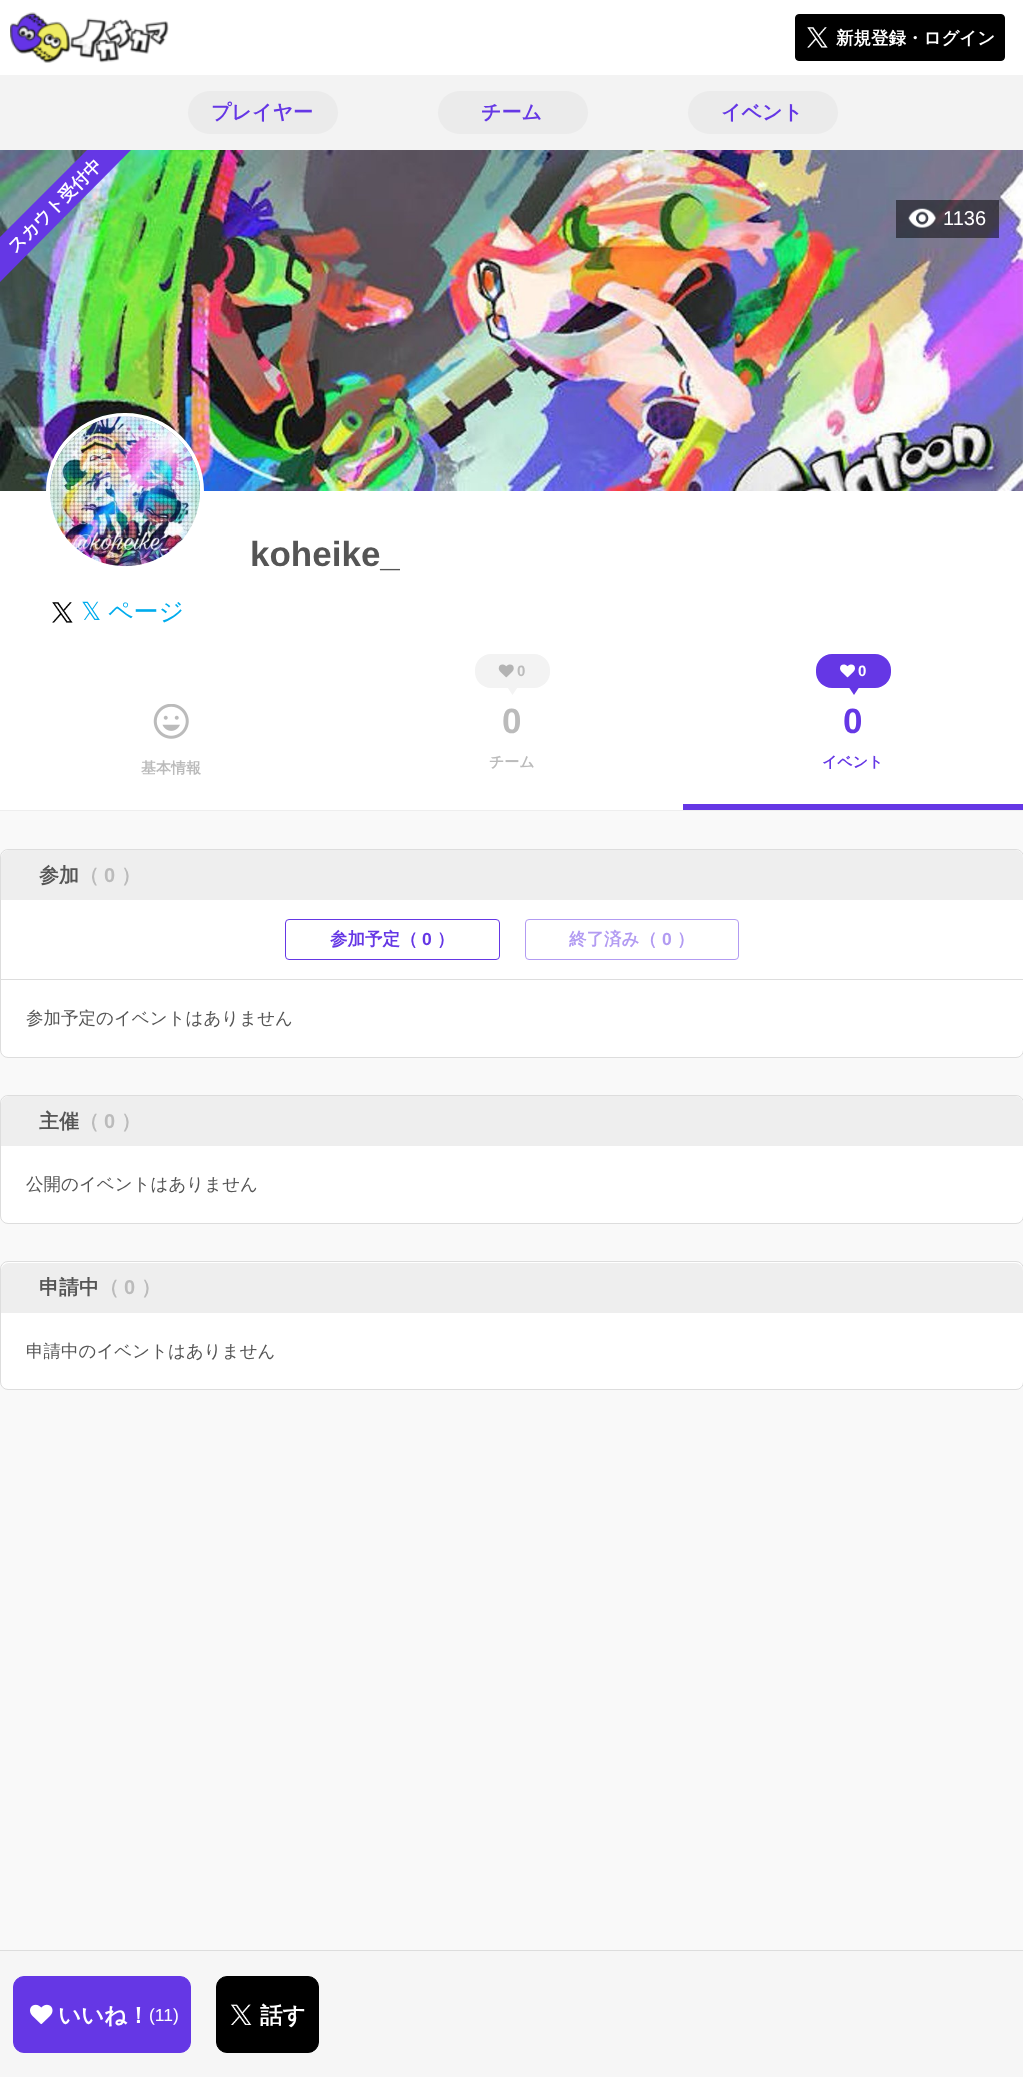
<!DOCTYPE html>
<meta charset="utf-8">
<style>body { margin: 0 } canvas { display: block }</style>
<canvas id="canvas" width="1023" height="2077"></canvas>
<img id="img1" src="img_01.png" hidden>
<img id="img2" src="img_02.png" hidden>
<img id="img3" src="img_03.png" hidden>
<img id="img4" src="img_04.png" hidden>
<img id="img5" src="img_05.png" hidden>
<img id="img6" src="img_06.png" hidden>
<img id="img7" src="img_07.png" hidden>
<img id="img8" src="img_08.png" hidden>
<img id="img9" src="img_09.png" hidden>
<img id="img10" src="img_10.png" hidden>
<img id="img11" src="img_11.png" hidden>
<script>
window.onload = function () {
	const canvas = document.getElementById("canvas");
	const ctx = canvas.getContext("2d");
	ctx.miterLimit = 4;
	ctx.fontKerning = "normal";
	function txt(s, x, y) {
		ctx.fillText(s, x, y);
	}
	function fill(x, y, w, h) {
		ctx.fillRect(x, y, w, h);
	}
	function round(x, y, w, h, r) {
		ctx.beginPath();
		ctx.roundRect(x, y, w, h, r);
		ctx.fill();
	}
	function img(id, x, y, w, h) {
		ctx.drawImage(document.getElementById(id), x, y, w, h);
	}

	ctx.fillStyle = "#F9F9F9";
	fill(0, 0, 1023, 2077);
	ctx.fillStyle = "#FFFFFF";
	fill(0, 0, 1023, 75);
	img("img1", 10, 12, 159, 51);
	ctx.fillStyle = "#000000";
	ctx.beginPath();
	ctx.roundRect(795.5, 14.5, 209, 46, 3.5);
	ctx.fill();
	ctx.strokeStyle = "#000000";
	ctx.stroke();
	img("img2", 807, 27, 21, 21);
	ctx.fillStyle = "#F3F3F3";
	fill(0, 75, 1023, 75);
	ctx.fillStyle = "#EBEBEB";
	round(188, 91, 150, 43, 21.5);
	round(438, 91, 150, 43, 21.5);
	round(688, 91, 150, 43, 21.5);
	img("img3", 0, 150, 1023, 341);
	ctx.save();
	ctx.beginPath();
	ctx.rect(0, 150, 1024, 341);
	ctx.clip();
	ctx.fillStyle = "#6537E5";
	ctx.beginPath();
	ctx.moveTo(-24, 261);
	ctx.lineTo(109, 128);
	ctx.lineTo(131, 150);
	ctx.lineTo(-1, 283);
	ctx.closePath();
	ctx.fill();
	ctx.restore();
	ctx.fillStyle = "rgba(0, 0, 0, 0.5)";
	fill(896, 200, 103, 38);
	img("img4", 908, 208, 29, 20);
	ctx.fillStyle = "#FFFFFF";
	fill(0, 491, 1023, 319);
	ctx.beginPath();
	ctx.roundRect(48, 415, 154, 153, 76.5);
	ctx.strokeStyle = "#FFFFFF";
	ctx.lineWidth = 4;
	ctx.stroke();
	img("img5", 50, 416, 150, 151);
	img("img6", 52, 602, 21, 21);
	ctx.fillStyle = "#EEEEEE";
	fill(0, 810, 1023, 1);
	img("img7", 153, 704, 36, 35);
	ctx.fillStyle = "#F3F3F3";
	round(475, 654, 75, 34, 16);
	img("img8", 498, 664, 16, 14);
	ctx.beginPath();
	ctx.moveTo(507.5, 687.5);
	ctx.lineTo(517.5, 687.5);
	ctx.lineTo(512.5, 695);
	ctx.closePath();
	ctx.fill();
	ctx.fillStyle = "#6537E5";
	round(816, 654, 75, 34, 16);
	img("img9", 840, 664, 15, 14);
	ctx.beginPath();
	ctx.moveTo(849, 687.5);
	ctx.lineTo(859, 687.5);
	ctx.lineTo(854, 695);
	ctx.closePath();
	ctx.fill();
	fill(683, 804, 340, 6);
	ctx.fillStyle = "#FFFFFF";
	ctx.beginPath();
	ctx.roundRect(0.5, 849.5, 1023, 208, 7.5);
	ctx.fill();
	ctx.strokeStyle = "#DDDDDD";
	ctx.lineWidth = 1;
	ctx.stroke();
	ctx.fillStyle = "#EEEEEE";
	ctx.beginPath();
	ctx.roundRect(1, 850, 1022, 50, [8, 8, 0, 0]);
	ctx.fill();
	ctx.fillStyle = "#DDDDDD";
	fill(1, 979, 1022, 1);
	ctx.beginPath();
	ctx.roundRect(285.5, 919.5, 214, 40, 3.5);
	ctx.strokeStyle = "#6537E5";
	ctx.stroke();
	ctx.beginPath();
	ctx.roundRect(525.5, 919.5, 213, 40, 3.5);
	ctx.strokeStyle = "#B29BF2";
	ctx.stroke();
	ctx.fillStyle = "#FFFFFF";
	ctx.beginPath();
	ctx.roundRect(0.5, 1095.5, 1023, 128, 7.5);
	ctx.fill();
	ctx.strokeStyle = "#DDDDDD";
	ctx.stroke();
	ctx.fillStyle = "#EEEEEE";
	ctx.beginPath();
	ctx.roundRect(1, 1096, 1022, 50, [8, 8, 0, 0]);
	ctx.fill();
	ctx.fillStyle = "#FFFFFF";
	ctx.beginPath();
	ctx.roundRect(0.5, 1261.5, 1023, 128, 7.5);
	ctx.fill();
	ctx.stroke();
	ctx.fillStyle = "#EEEEEE";
	ctx.beginPath();
	ctx.roundRect(1, 1263, 1022, 50, [8, 8, 0, 0]);
	ctx.fill();
	ctx.fillStyle = "#F6F6F6";
	fill(0, 1951, 1023, 126);
	ctx.fillStyle = "#DDDDDD";
	fill(0, 1950, 1023, 1);
	ctx.fillStyle = "#6537E5";
	ctx.beginPath();
	ctx.roundRect(13.5, 1976.5, 177, 76, 10.5);
	ctx.fill();
	ctx.strokeStyle = "#6537E5";
	ctx.stroke();
	img("img10", 30, 2004, 23, 21);
	ctx.fillStyle = "#000000";
	ctx.beginPath();
	ctx.roundRect(216.5, 1976.5, 102, 76, 10.5);
	ctx.fill();
	ctx.strokeStyle = "#000000";
	ctx.stroke();
	img("img11", 230, 2004, 22, 21);
	ctx.font = "bold 17.5px WenQuanYi Zen Hei";
	ctx.fillStyle = "#FFFFFF";
	txt("新規登録・ログイン", 836, 44);
	ctx.font = "bold 20px WenQuanYi Zen Hei";
	ctx.fillStyle = "#6537E5";
	txt("プレイヤー", 211, 119);
	txt("チーム", 481, 119);
	txt("イベント", 721, 119);
	ctx.font = "bold 17.5px WenQuanYi Zen Hei";
	ctx.fillStyle = "#FFFFFF";
	ctx.save();
	ctx.translate(15, 254);
	ctx.rotate(-45 * Math.PI / 180);
	ctx.fillText("スカウト受付中", 0, 0);
	ctx.restore();
	ctx.font = "20px Liberation Sans";
	txt("1136", 943, 225);
	ctx.font = "bold 35px Liberation Sans";
	ctx.fillStyle = "#555555";
	txt("koheike_", 250, 566);
	ctx.font = "25px DejaVu Sans";
	ctx.fillStyle = "#00ACED";
	txt("𝕏", 81, 620);
	ctx.font = "500 25px WenQuanYi Zen Hei";
	txt("ページ", 108, 620);
	ctx.font = "bold 15px WenQuanYi Zen Hei";
	ctx.fillStyle = "#BBBBBB";
	txt("基本情報", 141, 773);
	ctx.font = "bold 15px Liberation Sans";
	txt("0", 517, 676);
	ctx.font = "bold 35px Liberation Sans";
	txt("0", 502, 733);
	ctx.font = "bold 15px WenQuanYi Zen Hei";
	txt("チーム", 489, 767);
	ctx.font = "bold 15px Liberation Sans";
	ctx.fillStyle = "#FFFFFF";
	txt("0", 858, 676);
	ctx.font = "bold 35px Liberation Sans";
	ctx.fillStyle = "#6537E5";
	txt("0", 843, 733);
	ctx.font = "bold 15px WenQuanYi Zen Hei";
	txt("イベント", 822, 767);
	ctx.font = "bold 20px WenQuanYi Zen Hei";
	ctx.fillStyle = "#555555";
	txt("参加", 39, 882);
	ctx.fillStyle = "#BBBBBB";
	txt("（", 79, 882);
	ctx.font = "bold 20px Liberation Sans";
	txt("0", 104, 882);
	ctx.font = "bold 20px WenQuanYi Zen Hei";
	txt("）", 121, 882);
	ctx.font = "bold 17.5px WenQuanYi Zen Hei";
	ctx.fillStyle = "#6537E5";
	txt("参加予定（", 330, 945);
	ctx.font = "bold 17.5px Liberation Sans";
	txt("0", 422, 945);
	ctx.font = "bold 17.5px WenQuanYi Zen Hei";
	txt("）", 437, 945);
	ctx.fillStyle = "#B29BF2";
	txt("終了済み（", 569, 945);
	ctx.font = "bold 17.5px Liberation Sans";
	txt("0", 662, 945);
	ctx.font = "bold 17.5px WenQuanYi Zen Hei";
	txt("）", 677, 945);
	ctx.font = "500 17.5px WenQuanYi Zen Hei";
	ctx.fillStyle = "#555555";
	txt("参加予定のイベントはありません", 26, 1024);
	ctx.font = "bold 20px WenQuanYi Zen Hei";
	txt("主催", 39, 1128);
	ctx.fillStyle = "#BBBBBB";
	txt("（", 79, 1128);
	ctx.font = "bold 20px Liberation Sans";
	txt("0", 104, 1128);
	ctx.font = "bold 20px WenQuanYi Zen Hei";
	txt("）", 121, 1128);
	ctx.font = "500 17.5px WenQuanYi Zen Hei";
	ctx.fillStyle = "#555555";
	txt("公開のイベントはありません", 26, 1190);
	ctx.font = "bold 20px WenQuanYi Zen Hei";
	txt("申請中", 39, 1294);
	ctx.fillStyle = "#BBBBBB";
	txt("（", 99, 1294);
	ctx.font = "bold 20px Liberation Sans";
	txt("0", 124, 1294);
	ctx.font = "bold 20px WenQuanYi Zen Hei";
	txt("）", 141, 1294);
	ctx.font = "500 17.5px WenQuanYi Zen Hei";
	ctx.fillStyle = "#555555";
	txt("申請中のイベントはありません", 26, 1357);
	ctx.font = "bold 22.5px WenQuanYi Zen Hei";
	ctx.fillStyle = "#FFFFFF";
	txt("いいね！", 58, 2023);
	ctx.font = "17.5px Liberation Sans";
	txt("(11)", 149, 2021);
	ctx.font = "bold 22.5px WenQuanYi Zen Hei";
	txt("話す", 260, 2023);
};
</script>
